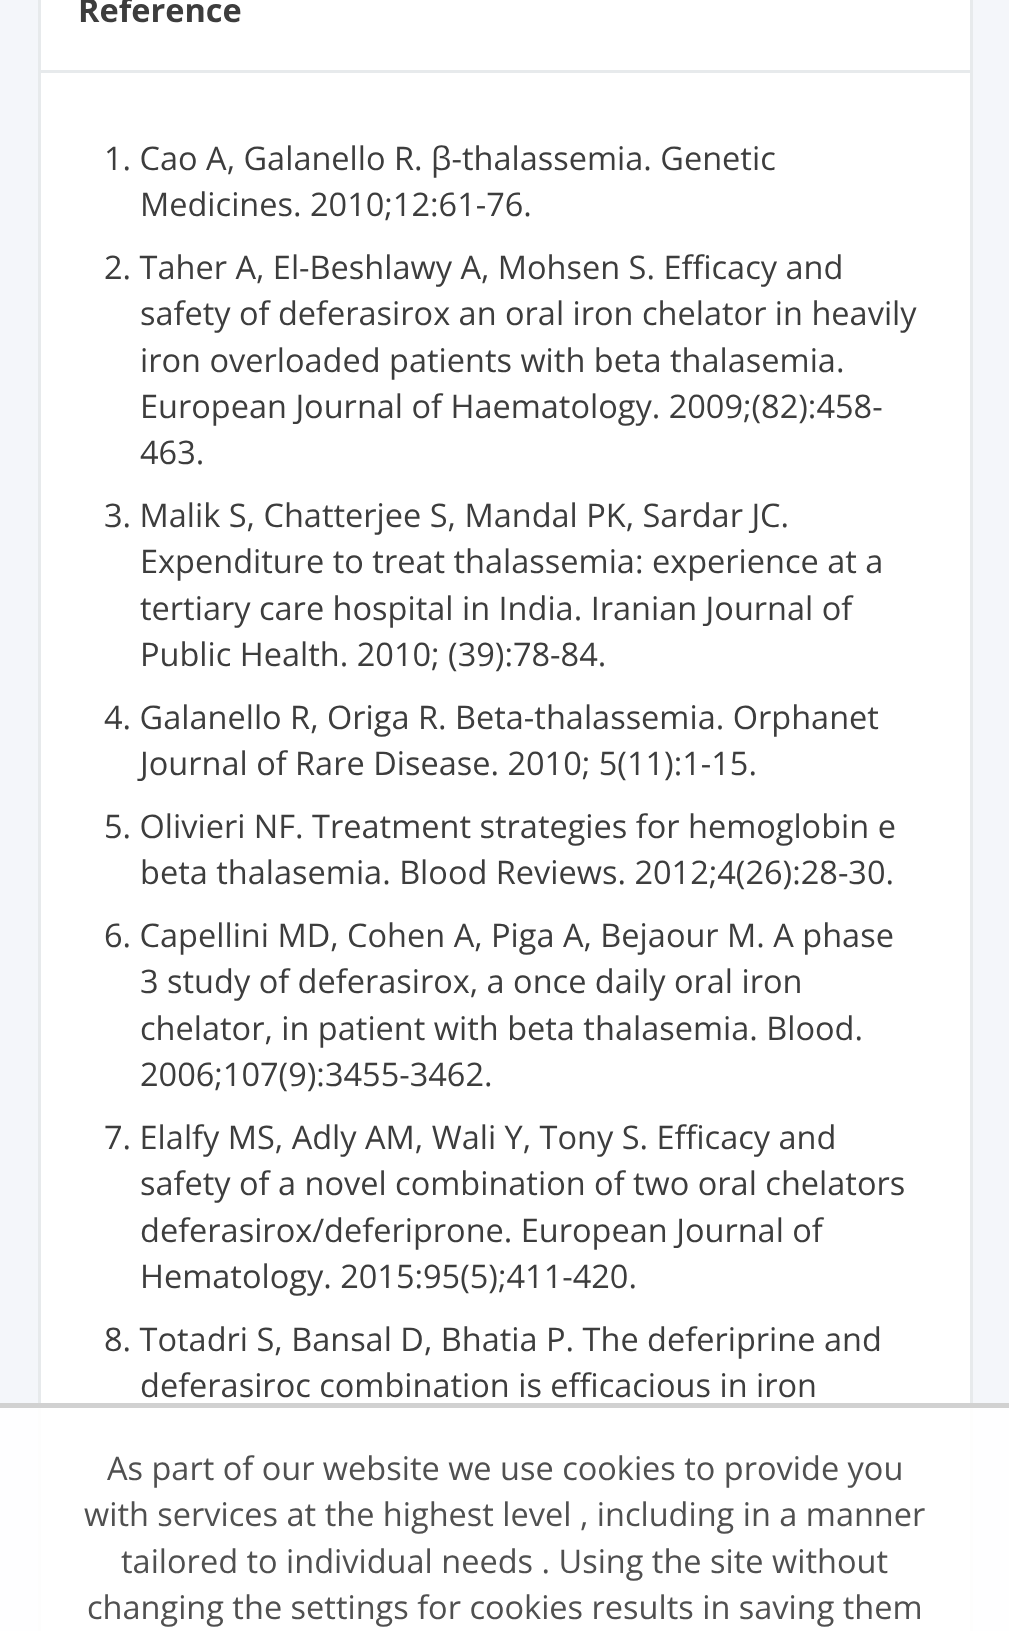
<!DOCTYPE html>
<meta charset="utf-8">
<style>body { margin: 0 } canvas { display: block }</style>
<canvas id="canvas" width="1009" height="1631"></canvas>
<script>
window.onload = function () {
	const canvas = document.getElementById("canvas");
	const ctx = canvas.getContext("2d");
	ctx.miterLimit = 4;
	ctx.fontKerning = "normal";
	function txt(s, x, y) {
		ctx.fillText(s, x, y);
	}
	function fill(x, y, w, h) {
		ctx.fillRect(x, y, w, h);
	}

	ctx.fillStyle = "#F4F6FA";
	fill(0, 0, 1009, 1631);
	ctx.fillStyle = "#FFFFFF";
	fill(41, 0, 929, 70);
	ctx.fillStyle = "#E7EAEC";
	fill(970, 0, 3, 70);
	fill(38, 0, 3, 70);
	ctx.fillStyle = "#FFFFFF";
	ctx.beginPath();
	ctx.rect(39.5, 71.5, 932, 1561);
	ctx.fill();
	ctx.strokeStyle = "#E7EAEC";
	ctx.lineWidth = 3;
	ctx.stroke();
	ctx.fillStyle = "rgba(255, 255, 255, 0.9)";
	fill(0, 1408, 1009, 223);
	ctx.fillStyle = "#D1D1D1";
	fill(0, 1403, 1009, 5);
	ctx.font = "bold 32.5px Open Sans";
	ctx.fillStyle = "#3D3D3D";
	txt("Reference", 78, 22);
	ctx.font = "32.5px Open Sans";
	txt("1. Cao A, Galanello R. β-thalassemia. Genetic", 104, 170);
	txt("Medicines. 2010;12:61-76.", 140, 216);
	txt("2. Taher A, El-Beshlawy A, Mohsen S. Efficacy and", 104, 279);
	txt("safety of deferasirox an oral iron chelator in heavily", 140, 325);
	txt("iron overloaded patients with beta thalasemia.", 140, 372);
	txt("European Journal of Haematology. 2009;(82):458-", 140, 418);
	txt("463.", 140, 464);
	txt("3. Malik S, Chatterjee S, Mandal PK, Sardar JC.", 104, 527);
	txt("Expenditure to treat thalassemia: experience at a", 140, 573);
	txt("tertiary care hospital in India. Iranian Journal of", 140, 620);
	txt("Public Health. 2010; (39):78-84.", 140, 666);
	txt("4. Galanello R, Origa R. Beta-thalassemia. Orphanet", 104, 729);
	txt("Journal of Rare Disease. 2010; 5(11):1-15.", 140, 775);
	txt("5. Olivieri NF. Treatment strategies for hemoglobin e", 104, 838);
	txt("beta thalasemia. Blood Reviews. 2012;4(26):28-30.", 140, 884);
	txt("6. Capellini MD, Cohen A, Piga A, Bejaour M. A phase", 104, 947);
	txt("3 study of deferasirox, a once daily oral iron", 140, 993);
	txt("chelator, in patient with beta thalasemia. Blood.", 140, 1040);
	txt("2006;107(9):3455-3462.", 140, 1086);
	txt("7. Elalfy MS, Adly AM, Wali Y, Tony S. Efficacy and", 104, 1149);
	txt("safety of a novel combination of two oral chelators", 140, 1195);
	txt("deferasirox/deferiprone. European Journal of", 140, 1242);
	txt("Hematology. 2015:95(5);411-420.", 140, 1288);
	txt("8. Totadri S, Bansal D, Bhatia P. The deferiprine and", 104, 1351);
	txt("deferasiroc combination is efficacious in iron", 140, 1397);
	ctx.fillStyle = "#505050";
	txt("As part of our website we use cookies to provide you", 107, 1480);
	txt("with services at the highest level , including in a manner", 84, 1526);
	txt("tailored to individual needs . Using the site without", 121, 1573);
	txt("changing the settings for cookies results in saving them", 87, 1619);
};
</script>
